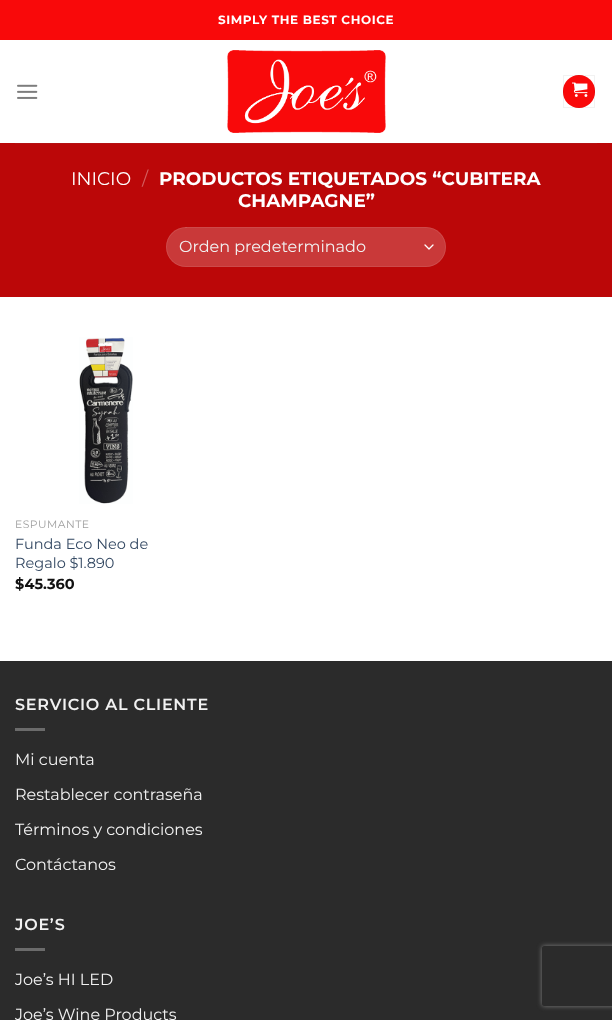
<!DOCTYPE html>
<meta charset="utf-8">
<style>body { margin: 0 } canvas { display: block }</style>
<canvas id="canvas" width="612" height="1020"></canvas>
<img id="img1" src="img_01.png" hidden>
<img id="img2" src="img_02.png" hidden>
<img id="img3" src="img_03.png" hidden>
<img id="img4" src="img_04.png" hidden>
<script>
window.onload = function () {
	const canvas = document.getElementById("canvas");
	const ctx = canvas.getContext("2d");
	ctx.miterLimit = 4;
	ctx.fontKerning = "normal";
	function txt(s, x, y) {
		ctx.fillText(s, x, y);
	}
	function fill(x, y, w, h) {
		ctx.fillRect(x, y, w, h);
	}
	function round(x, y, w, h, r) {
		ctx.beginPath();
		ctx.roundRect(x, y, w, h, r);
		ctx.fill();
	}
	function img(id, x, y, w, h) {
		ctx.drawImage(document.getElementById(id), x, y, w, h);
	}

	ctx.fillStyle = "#FFFFFF";
	fill(0, 0, 612, 1020);
	ctx.fillStyle = "#F9090A";
	fill(0, 0, 612, 40);
	img("img1", 17, 84, 21, 15);
	img("img2", 227, 50, 159, 83);
	round(563, 75, 32, 33, 16);
	ctx.strokeStyle = "rgba(0, 0, 0, 0.05)";
	ctx.strokeRect(563.5, 75.5, 31, 32);
	img("img3", 572, 82, 16, 15);
	ctx.fillStyle = "#BB0708";
	fill(0, 143, 612, 154);
	ctx.fillStyle = "#B41213";
	fill(15, 143, 582, 1);
	ctx.fillStyle = "#C93939";
	round(166, 227, 280, 40, 20);
	ctx.beginPath();
	ctx.moveTo(425, 245);
	ctx.lineTo(429, 249);
	ctx.lineTo(433, 245);
	ctx.strokeStyle = "#FFFFFF";
	ctx.lineWidth = 1.3;
	ctx.lineCap = "round";
	ctx.lineJoin = "round";
	ctx.stroke();
	ctx.beginPath();
	ctx.roundRect(166.5, 227.5, 279, 39, 19.5);
	ctx.strokeStyle = "rgba(255, 255, 255, 0.09)";
	ctx.lineWidth = 1;
	ctx.lineJoin = "miter";
	ctx.stroke();
	img("img4", 79, 337, 54, 167);
	ctx.fillStyle = "#2B2B2B";
	fill(0, 662, 612, 358);
	ctx.fillStyle = "#292929";
	fill(0, 661, 612, 1);
	ctx.fillStyle = "#6B6B6B";
	fill(15, 728, 30, 3);
	fill(15, 948, 30, 3);
	ctx.save();
	ctx.beginPath();
	ctx.moveTo(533, 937);
	ctx.lineTo(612, 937);
	ctx.lineTo(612, 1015);
	ctx.lineTo(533, 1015);
	ctx.closePath();
	ctx.moveTo(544, 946);
	ctx.lineTo(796, 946);
	ctx.bezierCurveTo(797, 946, 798, 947, 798, 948);
	ctx.lineTo(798, 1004);
	ctx.bezierCurveTo(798, 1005, 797, 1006, 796, 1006);
	ctx.lineTo(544, 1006);
	ctx.bezierCurveTo(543, 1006, 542, 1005, 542, 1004);
	ctx.lineTo(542, 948);
	ctx.bezierCurveTo(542, 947, 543, 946, 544, 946);
	ctx.closePath();
	ctx.clip("evenodd");
	ctx.fillStyle = "#808080";
	ctx.filter = "blur(2.5px)";
	ctx.beginPath();
	ctx.roundRect(542, 946, 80, 60, 2);
	ctx.fill();
	ctx.filter = "none";
	ctx.restore();
	ctx.letterSpacing = "0.6px";
	ctx.font = "bold 12px Montserrat";
	ctx.fillStyle = "#FFFFFF";
	txt("SIMPLY THE BEST CHOICE", 218, 24);
	ctx.letterSpacing = "0px";
	ctx.font = "18.4px Montserrat";
	txt("INICIO", 71, 185);
	ctx.fillStyle = "#D35E5E";
	txt("/", 142, 185);
	ctx.font = "bold 18.4px Montserrat";
	ctx.fillStyle = "#FFFFFF";
	txt("PRODUCTOS ETIQUETADOS “CUBITERA", 159, 185);
	txt("CHAMPAGNE”", 238, 207);
	ctx.font = "16px Montserrat";
	ctx.fillStyle = "#F1F1F1";
	txt("Orden predeterminado", 179, 252);
	ctx.letterSpacing = "0.5px";
	ctx.font = "10.75px Montserrat";
	ctx.fillStyle = "#A0A0A0";
	txt("ESPUMANTE", 15, 528);
	ctx.letterSpacing = "0px";
	ctx.font = "14.5px Montserrat";
	ctx.fillStyle = "#334862";
	txt("Funda Eco Neo de", 15, 549);
	txt("Regalo $1.890", 15, 568);
	ctx.font = "bold 14.5px Montserrat";
	ctx.fillStyle = "#111111";
	txt("$45.360", 15, 589);
	ctx.letterSpacing = "0.75px";
	ctx.font = "600 16px Montserrat";
	ctx.fillStyle = "#F1F1F1";
	txt("SERVICIO AL CLIENTE", 15, 710);
	ctx.letterSpacing = "0px";
	ctx.font = "16px Montserrat";
	txt("Mi cuenta", 15, 765);
	txt("Restablecer contraseña", 15, 800);
	txt("Términos y condiciones", 15, 835);
	txt("Contáctanos", 15, 870);
	ctx.letterSpacing = "0.75px";
	ctx.font = "600 16px Montserrat";
	txt("JOE’S", 15, 930);
	ctx.letterSpacing = "0px";
	ctx.font = "16px Montserrat";
	txt("Joe’s HI LED", 15, 985);
	txt("Joe’s Wine Products", 15, 1020);
};
</script>
